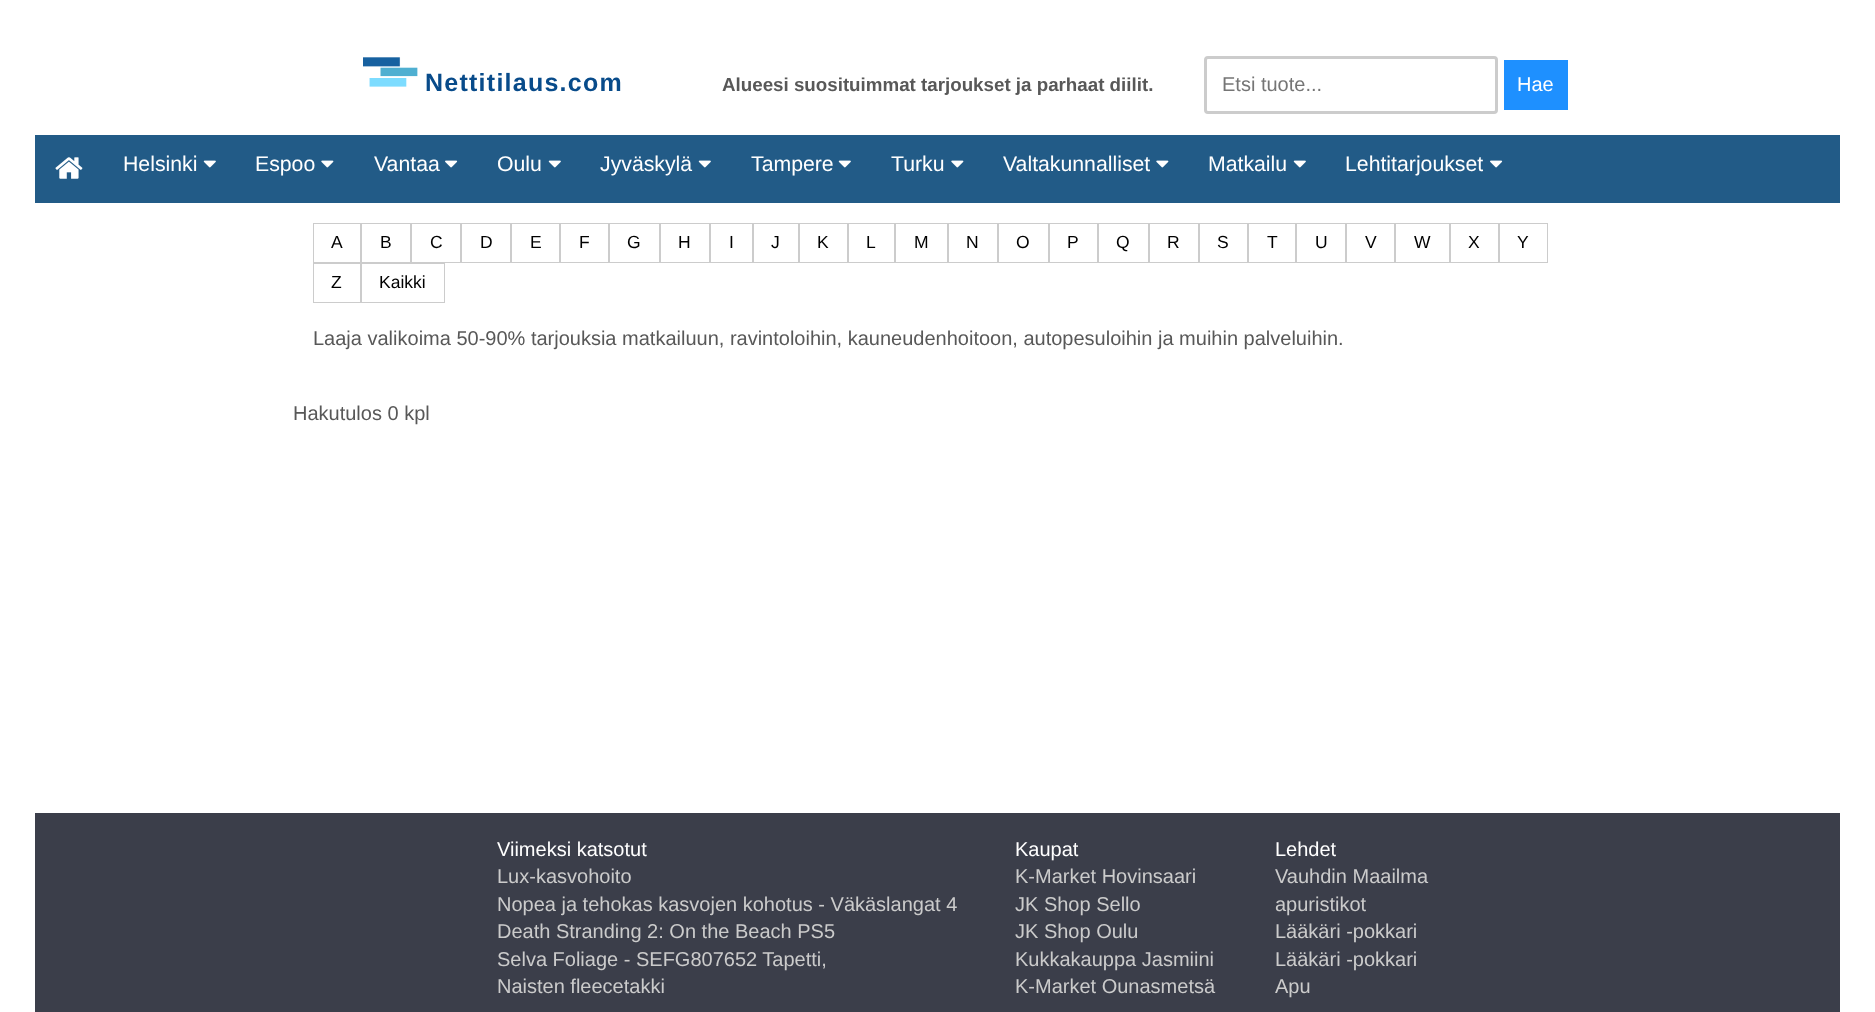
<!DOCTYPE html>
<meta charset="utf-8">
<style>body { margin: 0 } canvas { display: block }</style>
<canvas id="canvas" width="1875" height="1012"></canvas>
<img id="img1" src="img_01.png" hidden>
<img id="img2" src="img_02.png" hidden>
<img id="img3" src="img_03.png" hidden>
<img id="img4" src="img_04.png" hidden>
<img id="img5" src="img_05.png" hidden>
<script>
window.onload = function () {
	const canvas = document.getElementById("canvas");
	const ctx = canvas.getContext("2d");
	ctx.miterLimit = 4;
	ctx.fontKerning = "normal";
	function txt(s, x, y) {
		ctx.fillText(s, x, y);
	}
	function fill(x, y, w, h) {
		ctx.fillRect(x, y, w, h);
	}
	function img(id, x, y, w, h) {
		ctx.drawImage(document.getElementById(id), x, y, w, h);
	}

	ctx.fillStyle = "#FFFFFF";
	fill(0, 0, 1875, 1012);
	img("img1", 363, 57, 55, 30);
	ctx.beginPath();
	ctx.roundRect(1205.5, 57.5, 291, 55, 2.5);
	ctx.strokeStyle = "#CCCCCC";
	ctx.lineWidth = 3;
	ctx.stroke();
	ctx.fillStyle = "#1E90FF";
	fill(1504, 60, 64, 50);
	ctx.fillStyle = "#225B87";
	fill(35, 135, 1805, 68);
	img("img2", 55, 157, 28, 22);
	img("img3", 203, 160, 13, 8);
	img("img4", 321, 160, 13, 8);
	img("img5", 445, 160, 13, 8);
	img("img3", 548, 160, 13, 8);
	img("img3", 698, 160, 13, 8);
	img("img3", 838, 160, 13, 8);
	img("img4", 951, 160, 13, 8);
	img("img4", 1156, 160, 13, 8);
	img("img3", 1293, 160, 13, 8);
	img("img5", 1490, 160, 13, 8);
	ctx.lineWidth = 1;
	ctx.strokeRect(313.5, 223.5, 47, 39);
	ctx.strokeRect(361.5, 223.5, 49, 39);
	ctx.strokeRect(411.5, 223.5, 49, 39);
	ctx.strokeRect(461.5, 223.5, 49, 39);
	ctx.strokeRect(511.5, 223.5, 48, 39);
	ctx.strokeRect(560.5, 223.5, 48, 39);
	ctx.strokeRect(609.5, 223.5, 50, 39);
	ctx.strokeRect(660.5, 223.5, 49, 39);
	ctx.strokeRect(710.5, 223.5, 42, 39);
	ctx.strokeRect(753.5, 223.5, 45, 39);
	ctx.strokeRect(799.5, 223.5, 48, 39);
	ctx.strokeRect(848.5, 223.5, 46, 39);
	ctx.strokeRect(895.5, 223.5, 52, 39);
	ctx.strokeRect(948.5, 223.5, 49, 39);
	ctx.strokeRect(998.5, 223.5, 50, 39);
	ctx.strokeRect(1049.5, 223.5, 48, 39);
	ctx.strokeRect(1098.5, 223.5, 50, 39);
	ctx.strokeRect(1149.5, 223.5, 49, 39);
	ctx.strokeRect(1199.5, 223.5, 48, 39);
	ctx.strokeRect(1248.5, 223.5, 47, 39);
	ctx.strokeRect(1296.5, 223.5, 49, 39);
	ctx.strokeRect(1346.5, 223.5, 48, 39);
	ctx.strokeRect(1395.5, 223.5, 54, 39);
	ctx.strokeRect(1450.5, 223.5, 48, 39);
	ctx.strokeRect(1499.5, 223.5, 48, 39);
	ctx.strokeRect(313.5, 263.5, 47, 39);
	ctx.strokeRect(361.5, 263.5, 83, 39);
	ctx.fillStyle = "#3B3E4A";
	fill(35, 813, 1805, 199);
	ctx.letterSpacing = "1.25px";
	ctx.font = "bold 25px Liberation Sans";
	ctx.fillStyle = "#084B8A";
	txt("Nettitilaus.com", 425, 91);
	ctx.letterSpacing = "0px";
	ctx.font = "bold 18.75px Liberation Sans";
	ctx.fillStyle = "#585858";
	txt("Alueesi suosituimmat tarjoukset ja parhaat diilit.", 722, 91);
	ctx.font = "20px Liberation Sans";
	ctx.fillStyle = "#757575";
	txt("Etsi tuote...", 1222, 91);
	ctx.fillStyle = "#FFFFFF";
	txt("Hae", 1517, 91);
	ctx.font = "21.25px Liberation Sans";
	txt("Helsinki", 123, 171);
	txt("Espoo", 255, 171);
	txt("Vantaa", 374, 171);
	txt("Oulu", 497, 171);
	txt("Jyväskylä", 600, 171);
	txt("Tampere", 751, 171);
	txt("Turku", 891, 171);
	txt("Valtakunnalliset", 1003, 171);
	txt("Matkailu", 1208, 171);
	txt("Lehtitarjoukset", 1345, 171);
	ctx.font = "17.5px Liberation Sans";
	ctx.fillStyle = "#000000";
	txt("A", 331, 248);
	txt("B", 380, 248);
	txt("C", 430, 248);
	txt("D", 480, 248);
	txt("E", 530, 248);
	txt("F", 579, 248);
	txt("G", 627, 248);
	txt("H", 678, 248);
	txt("I", 729, 248);
	txt("J", 771, 248);
	txt("K", 817, 248);
	txt("L", 866, 248);
	txt("M", 914, 248);
	txt("N", 966, 248);
	txt("O", 1016, 248);
	txt("P", 1067, 248);
	txt("Q", 1116, 248);
	txt("R", 1167, 248);
	txt("S", 1217, 248);
	txt("T", 1267, 248);
	txt("U", 1315, 248);
	txt("V", 1365, 248);
	txt("W", 1414, 248);
	txt("X", 1468, 248);
	txt("Y", 1517, 248);
	txt("Z", 331, 288);
	txt("Kaikki", 379, 288);
	ctx.font = "20px Liberation Sans";
	ctx.fillStyle = "#585858";
	txt("Laaja valikoima 50-90% tarjouksia matkailuun, ravintoloihin, kauneudenhoitoon, autopesuloihin ja muihin palveluihin.", 313, 345);
	txt("Hakutulos 0 kpl", 293, 420);
	ctx.fillStyle = "#FFFFFF";
	txt("Viimeksi katsotut", 497, 856);
	ctx.fillStyle = "#CBCBCB";
	txt("Lux-kasvohoito", 497, 883);
	txt("Nopea ja tehokas kasvojen kohotus - Väkäslangat 4", 497, 911);
	txt("Death Stranding 2: On the Beach PS5", 497, 938);
	txt("Selva Foliage - SEFG807652 Tapetti,", 497, 966);
	txt("Naisten fleecetakki", 497, 993);
	ctx.fillStyle = "#FFFFFF";
	txt("Kaupat", 1015, 856);
	ctx.fillStyle = "#CBCBCB";
	txt("K-Market Hovinsaari", 1015, 883);
	txt("JK Shop Sello", 1015, 911);
	txt("JK Shop Oulu", 1015, 938);
	txt("Kukkakauppa Jasmiini", 1015, 966);
	txt("K-Market Ounasmetsä", 1015, 993);
	ctx.fillStyle = "#FFFFFF";
	txt("Lehdet", 1275, 856);
	ctx.fillStyle = "#CBCBCB";
	txt("Vauhdin Maailma", 1275, 883);
	txt("apuristikot", 1275, 911);
	txt("Lääkäri -pokkari", 1275, 938);
	txt("Lääkäri -pokkari", 1275, 966);
	txt("Apu", 1275, 993);
};
</script>
